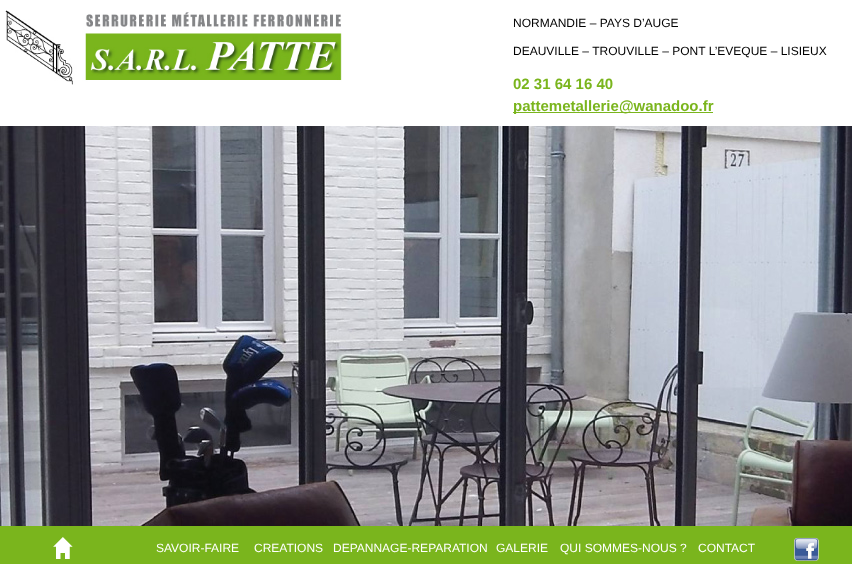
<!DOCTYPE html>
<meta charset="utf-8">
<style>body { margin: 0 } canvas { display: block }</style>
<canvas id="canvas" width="852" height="570"></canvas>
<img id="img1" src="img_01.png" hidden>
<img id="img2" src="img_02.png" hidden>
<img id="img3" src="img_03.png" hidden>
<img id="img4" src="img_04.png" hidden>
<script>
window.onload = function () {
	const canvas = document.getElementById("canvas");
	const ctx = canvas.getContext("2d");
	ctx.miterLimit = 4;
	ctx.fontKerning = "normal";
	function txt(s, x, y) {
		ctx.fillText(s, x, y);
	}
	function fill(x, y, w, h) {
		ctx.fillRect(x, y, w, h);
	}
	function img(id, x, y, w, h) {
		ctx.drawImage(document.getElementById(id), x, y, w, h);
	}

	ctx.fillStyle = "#FFFFFF";
	fill(0, 0, 852, 570);
	img("img1", 5, 10, 337, 75);
	ctx.fillStyle = "#7AB51D";
	fill(513, 112, 200, 1);
	img("img2", 0, 126, 852, 400);
	fill(0, 526, 852, 38);
	img("img3", 53, 537, 20, 22);
	img("img4", 794, 537, 25, 24);
	ctx.font = "12px Liberation Sans";
	ctx.fillStyle = "#000000";
	txt("NORMANDIE – PAYS D’AUGE", 513, 27);
	txt("DEAUVILLE – TROUVILLE – PONT L’EVEQUE – LISIEUX", 513, 55);
	ctx.font = "bold 15px Liberation Sans";
	ctx.fillStyle = "#7AB51D";
	txt("02 31 64 16 40", 513, 89);
	txt("pattemetallerie@wanadoo.fr", 513, 111);
	ctx.font = "12px Liberation Sans";
	ctx.fillStyle = "#FFFFFF";
	txt("SAVOIR-FAIRE", 156, 552);
	txt("CREATIONS", 254, 552);
	txt("DEPANNAGE-REPARATION", 333, 552);
	txt("GALERIE", 496, 552);
	txt("QUI SOMMES-NOUS ?", 560, 552);
	txt("CONTACT", 698, 552);
};
</script>
